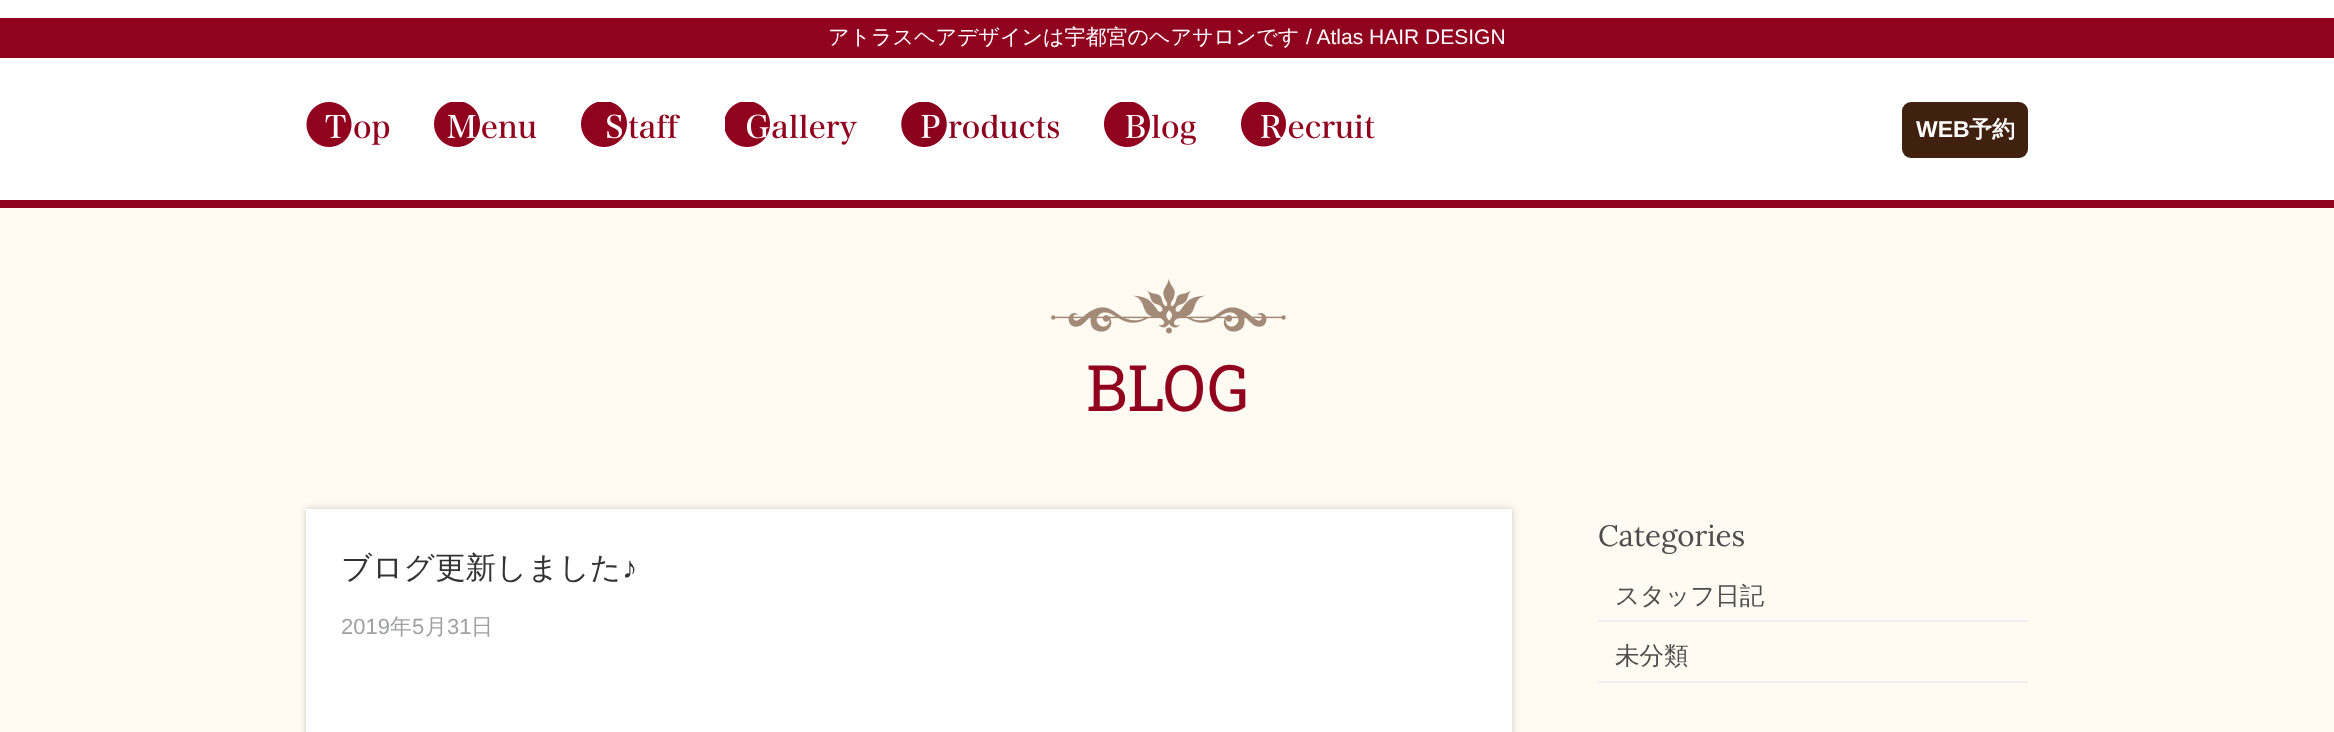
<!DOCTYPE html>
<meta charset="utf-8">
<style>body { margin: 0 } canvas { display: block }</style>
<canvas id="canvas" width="2334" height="732"></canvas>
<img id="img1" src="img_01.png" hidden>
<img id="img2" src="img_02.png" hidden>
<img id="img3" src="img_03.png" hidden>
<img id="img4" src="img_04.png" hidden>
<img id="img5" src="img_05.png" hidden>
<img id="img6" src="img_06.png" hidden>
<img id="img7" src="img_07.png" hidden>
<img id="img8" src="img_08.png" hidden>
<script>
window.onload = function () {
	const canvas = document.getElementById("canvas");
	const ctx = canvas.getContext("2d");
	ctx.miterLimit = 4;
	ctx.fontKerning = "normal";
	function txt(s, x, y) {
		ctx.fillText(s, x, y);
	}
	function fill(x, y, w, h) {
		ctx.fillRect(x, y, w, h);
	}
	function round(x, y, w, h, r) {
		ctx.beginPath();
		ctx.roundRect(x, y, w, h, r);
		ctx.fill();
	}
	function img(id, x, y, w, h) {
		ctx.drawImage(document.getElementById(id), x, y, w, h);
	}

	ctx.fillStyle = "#FFFFFF";
	fill(0, 0, 2334, 732);
	ctx.fillStyle = "#91021F";
	fill(0, 200, 2334, 8);
	fill(0, 18, 2334, 40);
	img("img1", 306, 102, 84, 45);
	img("img2", 434, 102, 103, 45);
	img("img3", 581, 102, 99, 45);
	img("img4", 725, 102, 132, 45);
	img("img5", 901, 102, 158, 45);
	img("img6", 1104, 102, 92, 45);
	img("img7", 1241, 102, 134, 45);
	ctx.fillStyle = "#40210F";
	round(1902, 102, 126, 56, 9);
	ctx.fillStyle = "#FFFAF2";
	fill(0, 208, 2334, 524);
	img("img8", 1051, 279, 235, 55);
	ctx.fillStyle = "rgba(0, 0, 0, 0.2)";
	ctx.filter = "blur(3.5px)";
	ctx.beginPath();
	ctx.rect(306, 509, 1206, 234);
	ctx.fill();
	ctx.filter = "none";
	ctx.fillStyle = "#FFFFFF";
	fill(306, 509, 1206, 223);
	ctx.fillStyle = "#EEEEEE";
	fill(1598, 620, 430, 2);
	fill(1598, 681, 430, 2);
	ctx.font = "500 21px WenQuanYi Zen Hei";
	ctx.fillStyle = "#FFFFFF";
	txt("アトラスヘアデザインは宇都宮のヘアサロンです", 828, 44);
	ctx.font = "21px Liberation Sans";
	txt("/ Atlas HAIR DESIGN", 1306, 44);
	ctx.font = "bold 23px Liberation Sans";
	txt("WEB", 1916, 137);
	ctx.font = "bold 23px WenQuanYi Zen Hei";
	txt("予約", 1969, 137);
	ctx.font = "64px Roboto Slab";
	ctx.fillStyle = "#91021F";
	txt("BLOG", 1086, 411);
	ctx.font = "500 30.6px WenQuanYi Zen Hei";
	ctx.fillStyle = "#333333";
	txt("ブログ更新しました", 341, 578);
	ctx.font = "30.6px Liberation Sans";
	txt("♪", 622, 578);
	ctx.font = "22px Liberation Sans";
	ctx.fillStyle = "#9FA0A0";
	txt("2019", 341, 634);
	ctx.font = "500 22px WenQuanYi Zen Hei";
	txt("年", 390, 634);
	ctx.font = "22px Liberation Sans";
	txt("5", 412, 634);
	ctx.font = "500 22px WenQuanYi Zen Hei";
	txt("月", 425, 634);
	ctx.font = "22px Liberation Sans";
	txt("31", 447, 634);
	ctx.font = "500 22px WenQuanYi Zen Hei";
	txt("日", 471, 634);
	ctx.font = "29.5px Lora";
	ctx.fillStyle = "#4D4D4D";
	txt("Categories", 1598, 546);
	ctx.font = "500 24.5px WenQuanYi Zen Hei";
	txt("スタッフ日記", 1615, 604);
	txt("未分類", 1615, 664);
};
</script>
